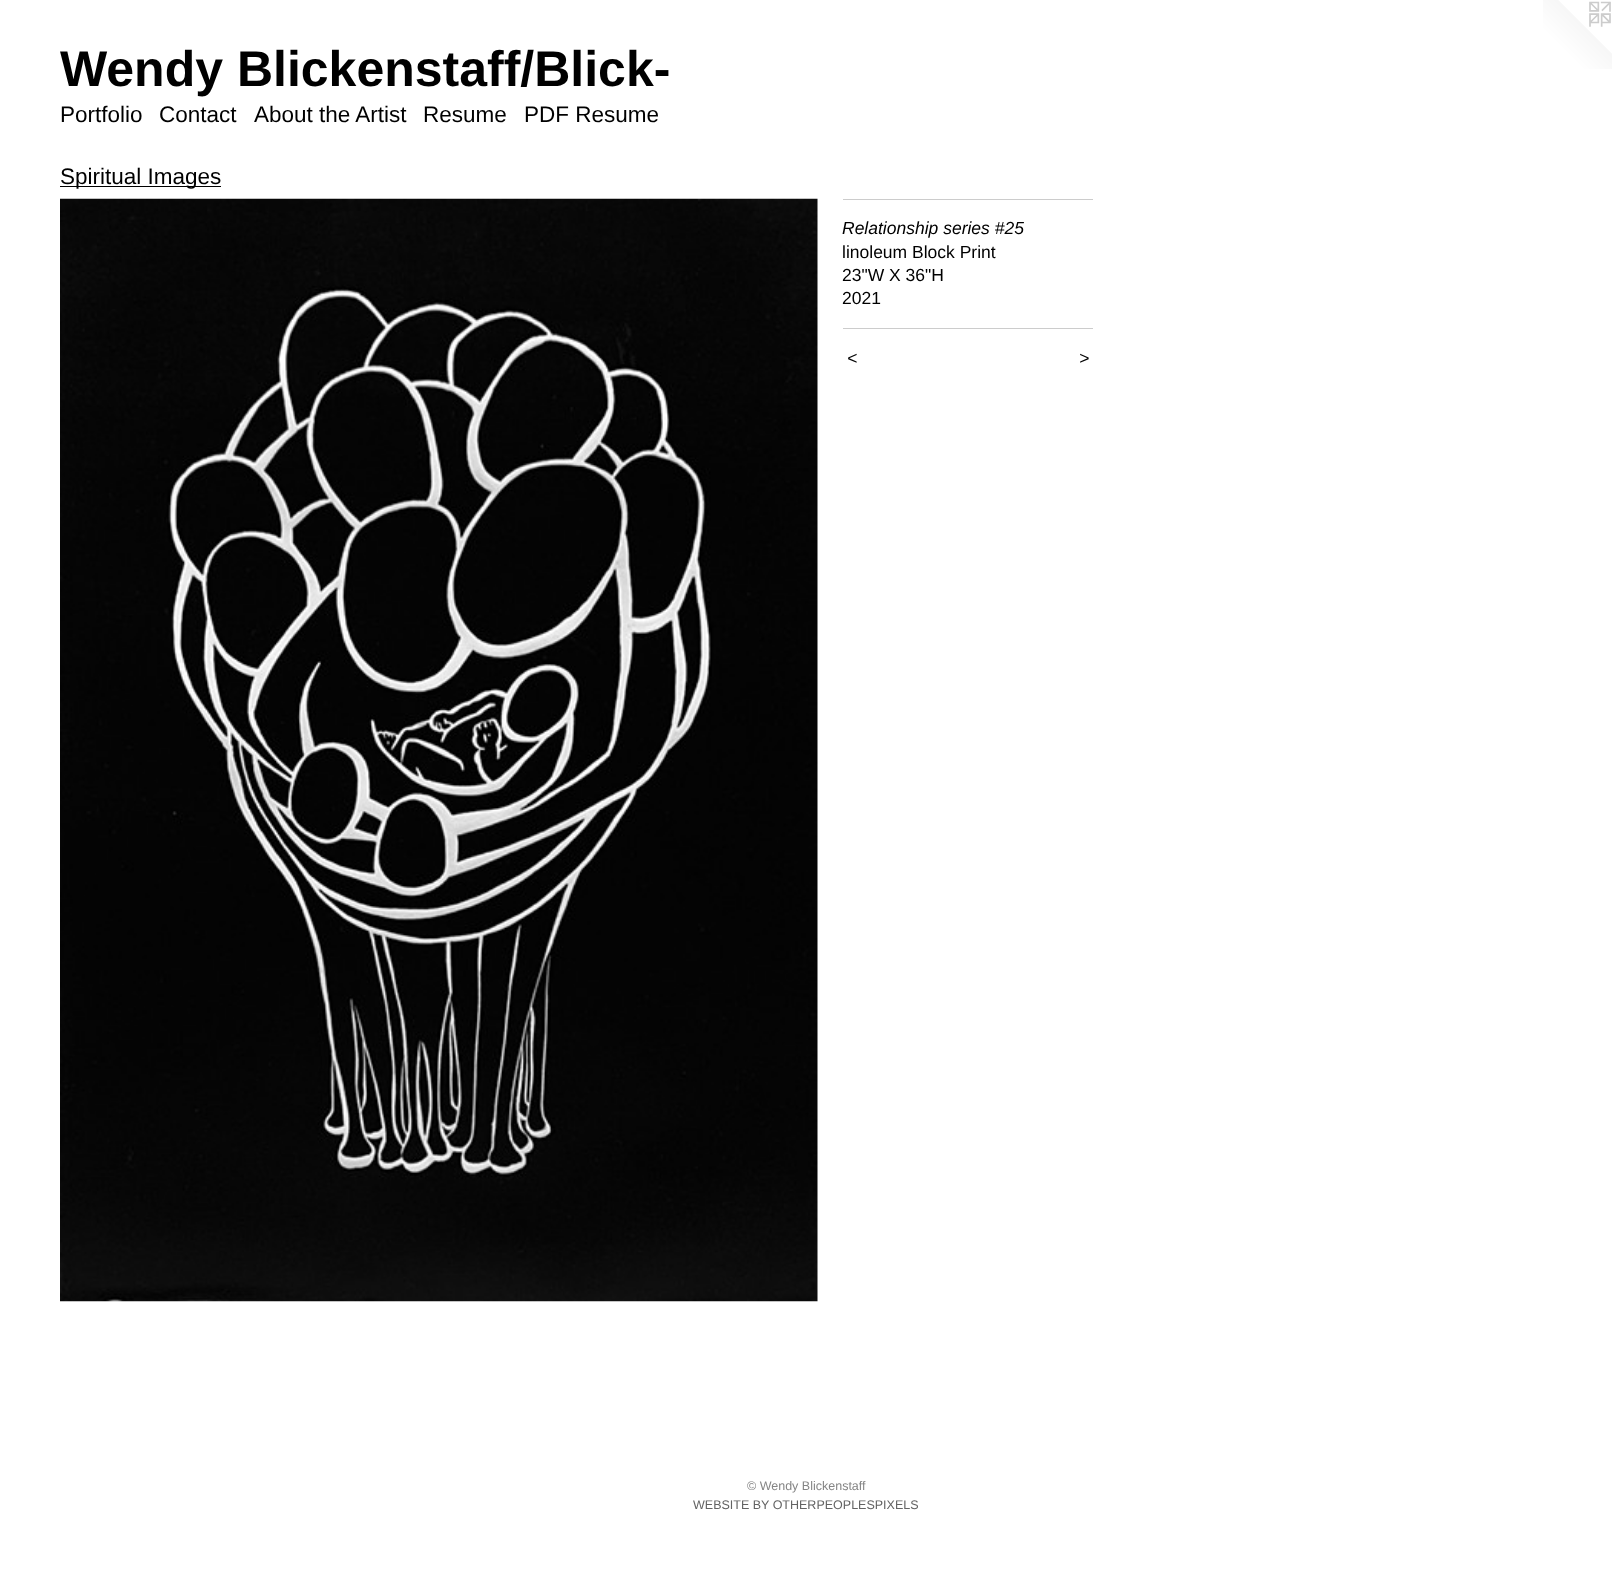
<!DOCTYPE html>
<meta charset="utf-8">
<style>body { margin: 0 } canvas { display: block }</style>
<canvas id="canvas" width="1612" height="1576"></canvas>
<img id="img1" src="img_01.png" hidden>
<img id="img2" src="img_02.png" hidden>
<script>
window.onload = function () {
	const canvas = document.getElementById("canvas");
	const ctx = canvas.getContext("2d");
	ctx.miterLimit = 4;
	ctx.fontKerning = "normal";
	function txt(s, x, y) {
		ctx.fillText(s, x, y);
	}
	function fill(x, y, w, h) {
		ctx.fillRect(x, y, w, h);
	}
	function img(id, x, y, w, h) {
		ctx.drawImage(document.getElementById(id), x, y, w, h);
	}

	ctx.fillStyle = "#FFFFFF";
	fill(0, 0, 1612, 1576);
	img("img1", 1543, 0, 69, 69);
	ctx.fillStyle = "#000000";
	fill(60, 186, 161, 1);
	img("img2", 60, 198, 758, 1104);
	ctx.fillStyle = "#CCCCCC";
	fill(843, 199, 250, 1);
	fill(843, 328, 250, 1);
	ctx.font = "bold 50px Liberation Sans";
	ctx.fillStyle = "#000000";
	txt("Wendy Blickenstaff/Blick-", 60, 86);
	ctx.font = "22.5px Liberation Sans";
	txt("Portfolio", 60, 122);
	txt("Contact", 159, 122);
	txt("About the Artist", 254, 122);
	txt("Resume", 423, 122);
	txt("PDF Resume", 524, 122);
	txt("Spiritual Images", 60, 184);
	ctx.font = "italic 17.5px Liberation Sans";
	txt("Relationship series #25", 842, 234);
	ctx.font = "17.5px Liberation Sans";
	txt("linoleum Block Print", 842, 258);
	txt("23\"W X 36\"H", 842, 281);
	txt("2021", 842, 304);
	ctx.letterSpacing = "1px";
	ctx.font = "italic 17.5px Liberation Sans";
	txt("<", 847, 364);
	txt(">", 1079, 364);
	ctx.letterSpacing = "0px";
	ctx.font = "12.5px Liberation Sans";
	ctx.fillStyle = "#858585";
	txt("© Wendy Blickenstaff", 747, 1490);
	ctx.fillStyle = "#636363";
	txt("WEBSITE BY OTHERPEOPLESPIXELS", 693, 1509);
};
</script>
